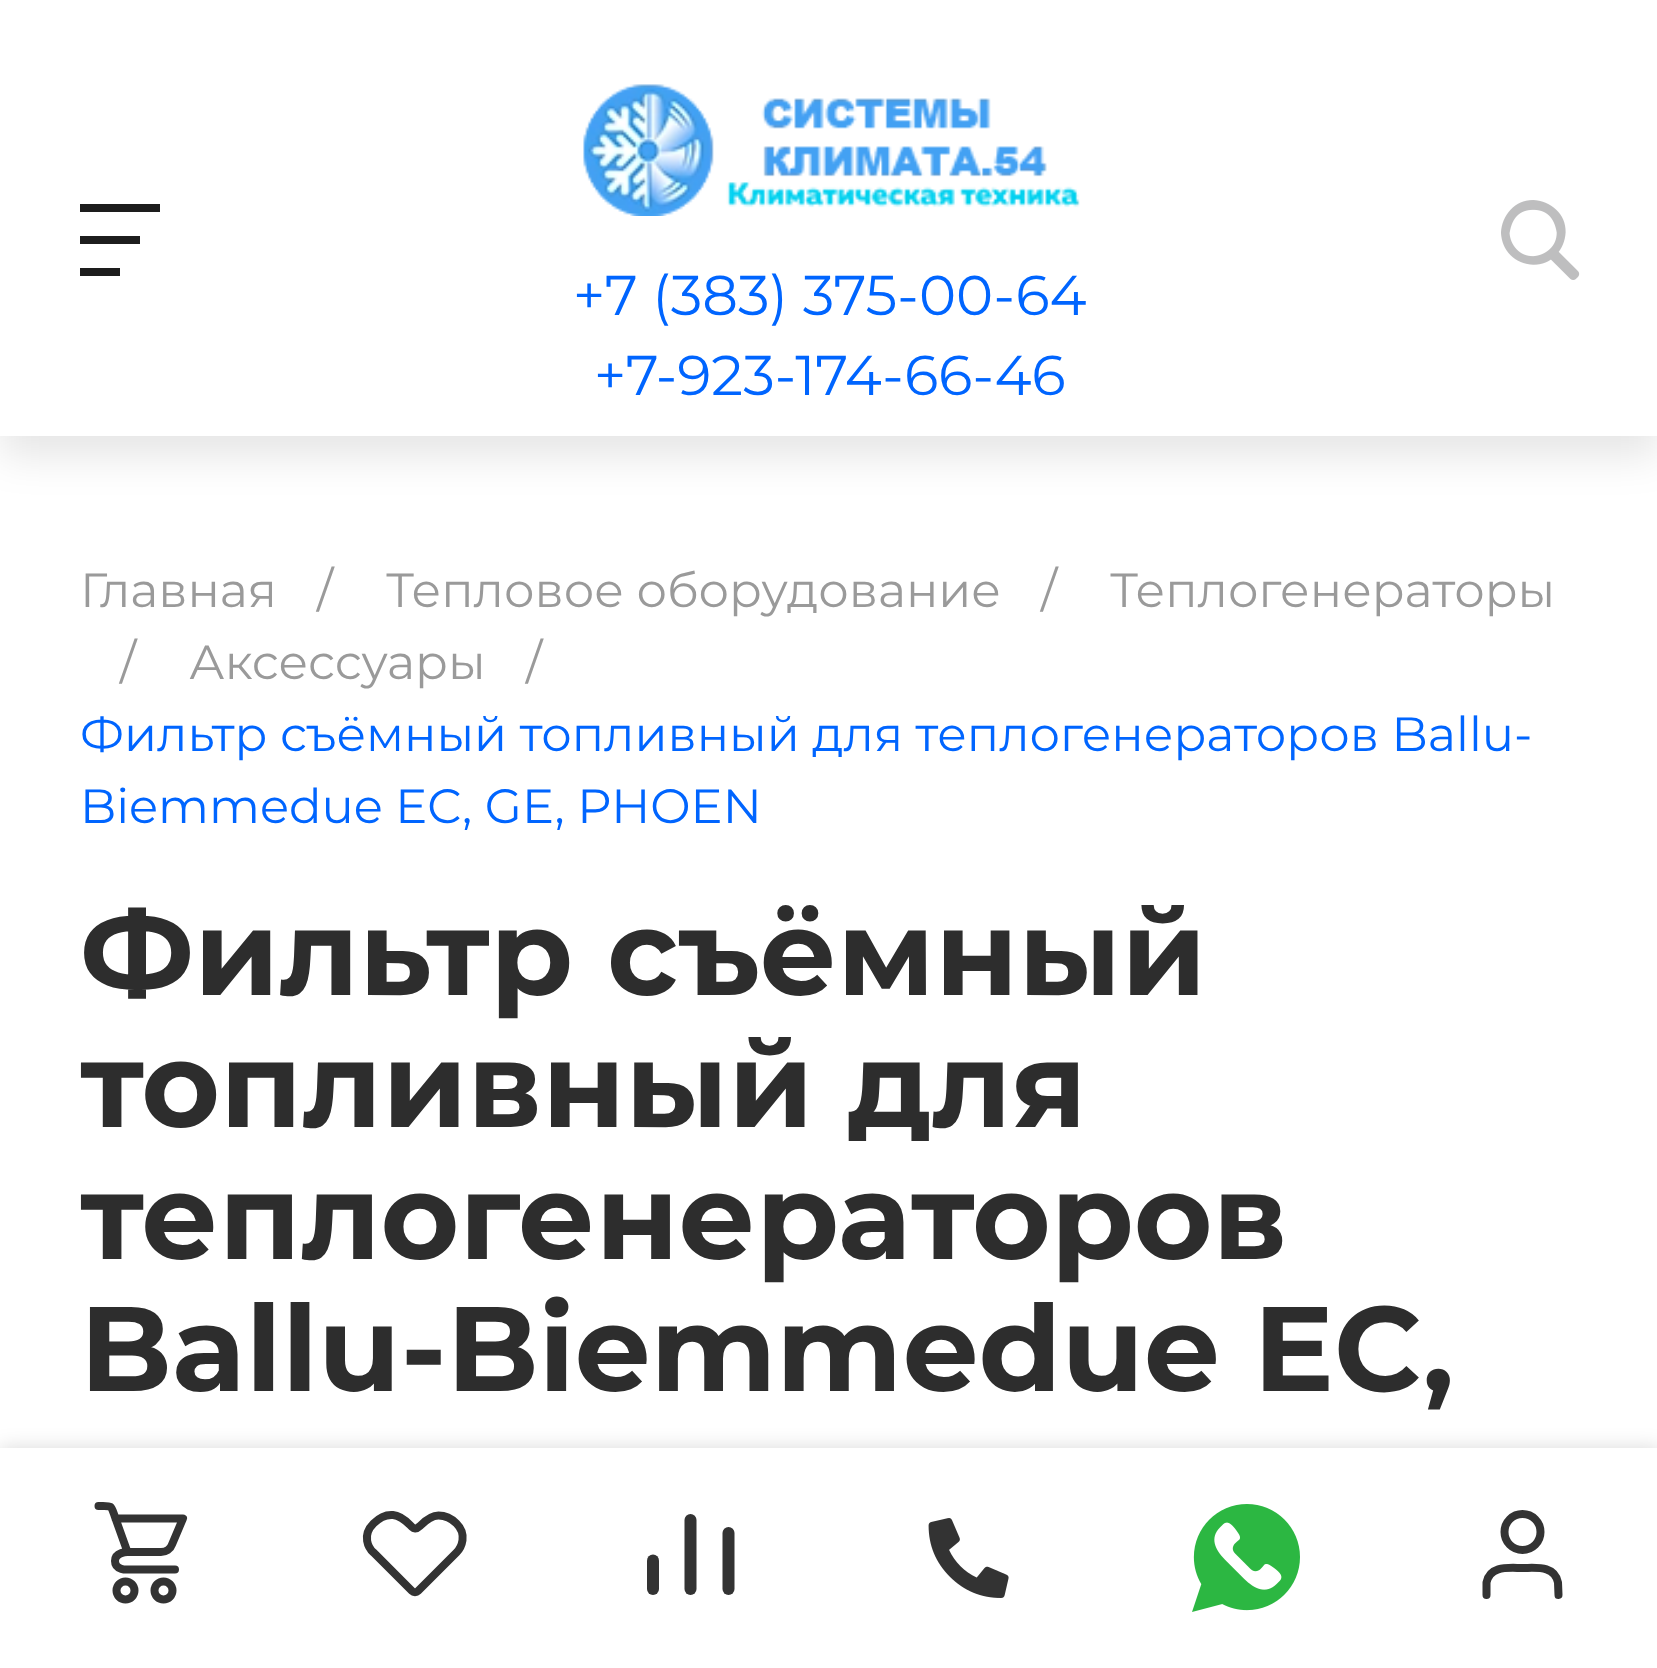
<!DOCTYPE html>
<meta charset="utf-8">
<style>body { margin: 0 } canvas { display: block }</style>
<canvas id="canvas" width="1657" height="1668"></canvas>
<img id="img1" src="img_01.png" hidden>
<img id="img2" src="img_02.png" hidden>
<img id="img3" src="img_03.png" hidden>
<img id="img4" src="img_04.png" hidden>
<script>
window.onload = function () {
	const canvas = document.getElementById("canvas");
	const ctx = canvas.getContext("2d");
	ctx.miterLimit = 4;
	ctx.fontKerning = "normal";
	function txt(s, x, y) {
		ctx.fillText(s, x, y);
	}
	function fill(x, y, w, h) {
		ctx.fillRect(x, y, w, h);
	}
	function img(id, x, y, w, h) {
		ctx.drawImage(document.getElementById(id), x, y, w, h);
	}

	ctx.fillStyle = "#FFFFFF";
	fill(0, 0, 1657, 1668);
	ctx.fillStyle = "rgba(0, 0, 0, 0.1)";
	ctx.filter = "blur(20px)";
	ctx.beginPath();
	ctx.rect(0, 20, 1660, 436);
	ctx.fill();
	ctx.filter = "none";
	ctx.fillStyle = "#FFFFFF";
	fill(0, 0, 1657, 436);
	ctx.fillStyle = "#1D1D1D";
	ctx.beginPath();
	ctx.moveTo(80, 204);
	ctx.lineTo(80, 212);
	ctx.lineTo(160, 212);
	ctx.lineTo(160, 204);
	ctx.closePath();
	ctx.moveTo(80, 236);
	ctx.lineTo(80, 244);
	ctx.lineTo(140, 244);
	ctx.lineTo(140, 236);
	ctx.closePath();
	ctx.moveTo(80, 268);
	ctx.lineTo(80, 276);
	ctx.lineTo(120, 276);
	ctx.lineTo(120, 268);
	ctx.closePath();
	ctx.fill();
	img("img1", 1501, 200, 79, 80);
	img("img2", 583, 84, 497, 132);
	ctx.fillStyle = "rgba(0, 0, 0, 0.15)";
	ctx.filter = "blur(10px)";
	ctx.beginPath();
	ctx.rect(0, 1448, 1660, 220);
	ctx.fill();
	ctx.filter = "none";
	ctx.fillStyle = "#FFFFFF";
	fill(0, 1448, 1657, 220);
	ctx.beginPath();
	ctx.moveTo(98.5, 1506);
	ctx.bezierCurveTo(113, 1506, 110.5, 1504.5, 115.5, 1518.5);
	ctx.moveTo(127.5, 1552);
	ctx.lineTo(161, 1552);
	ctx.bezierCurveTo(166, 1552, 170.5, 1549, 172, 1544.5);
	ctx.lineTo(183, 1518.5);
	ctx.lineTo(115.5, 1518.5);
	ctx.moveTo(127.5, 1552);
	ctx.lineTo(115.5, 1518.5);
	ctx.moveTo(127.5, 1552);
	ctx.bezierCurveTo(127.5, 1552, 115, 1552, 115, 1561);
	ctx.bezierCurveTo(115, 1570.5, 127.5, 1569.5, 127.5, 1569.5);
	ctx.lineTo(175, 1569.5);
	ctx.strokeStyle = "#333333";
	ctx.lineWidth = 8;
	ctx.lineCap = "round";
	ctx.lineJoin = "round";
	ctx.stroke();
	ctx.beginPath();
	ctx.arc(125.5, 1590.5, 9, 0, Math.PI * 2);
	ctx.stroke();
	ctx.beginPath();
	ctx.arc(163.5, 1590.5, 9, 0, Math.PI * 2);
	ctx.stroke();
	ctx.beginPath();
	ctx.moveTo(410, 1525);
	ctx.lineTo(412, 1527);
	ctx.bezierCurveTo(414, 1529, 416.5, 1529, 418, 1527.5);
	ctx.lineTo(420.5, 1525.5);
	ctx.bezierCurveTo(425.5, 1520.5, 431.5, 1515.5, 438.5, 1515.5);
	ctx.bezierCurveTo(444, 1515.5, 450.5, 1517.5, 456.5, 1523.5);
	ctx.bezierCurveTo(467.5, 1534.5, 461.5, 1547.5, 456.5, 1552.5);
	ctx.lineTo(418, 1591);
	ctx.bezierCurveTo(416.5, 1592.5, 413.5, 1592.5, 412, 1591);
	ctx.lineTo(373.5, 1552.5);
	ctx.bezierCurveTo(368.5, 1548, 361.5, 1535.5, 373.5, 1523.5);
	ctx.bezierCurveTo(380.5, 1516.5, 387.5, 1514.5, 393, 1515);
	ctx.bezierCurveTo(400, 1515.5, 405.5, 1520.5, 410, 1525);
	ctx.closePath();
	ctx.lineCap = "butt";
	ctx.lineJoin = "miter";
	ctx.stroke();
	ctx.beginPath();
	ctx.moveTo(653, 1589);
	ctx.lineTo(653, 1560.5);
	ctx.lineWidth = 12;
	ctx.lineCap = "round";
	ctx.lineJoin = "round";
	ctx.stroke();
	ctx.beginPath();
	ctx.moveTo(690.5, 1589);
	ctx.lineTo(690.5, 1520);
	ctx.stroke();
	ctx.beginPath();
	ctx.moveTo(728.5, 1589);
	ctx.lineTo(728.5, 1533);
	ctx.stroke();
	img("img3", 928, 1518, 81, 80);
	img("img4", 1192, 1504, 108, 108);
	ctx.beginPath();
	ctx.moveTo(1522.5, 1550);
	ctx.bezierCurveTo(1532.5, 1550, 1540.5, 1542, 1540.5, 1532);
	ctx.bezierCurveTo(1540.5, 1522, 1532.5, 1514, 1522.5, 1514);
	ctx.bezierCurveTo(1512.5, 1514, 1504.5, 1522, 1504.5, 1532);
	ctx.bezierCurveTo(1504.5, 1542, 1512.5, 1550, 1522.5, 1550);
	ctx.closePath();
	ctx.lineWidth = 8;
	ctx.stroke();
	ctx.beginPath();
	ctx.moveTo(1558.5, 1595);
	ctx.lineTo(1558, 1582.5);
	ctx.bezierCurveTo(1554.5, 1565, 1536, 1568, 1522.5, 1568);
	ctx.bezierCurveTo(1509, 1568, 1490, 1565, 1486.5, 1582.5);
	ctx.lineTo(1486.5, 1595);
	ctx.stroke();
	ctx.font = "56px Montserrat";
	ctx.fillStyle = "#0065FF";
	txt("+7 (383) 375-00-64", 573, 315);
	txt("+7-923-174-66-46", 594, 395);
	ctx.font = "48px Montserrat";
	ctx.fillStyle = "#9A9A9A";
	txt("Главная", 80, 607);
	txt("/", 317, 607);
	txt("Тепловое оборудование", 386, 607);
	txt("/", 1041, 607);
	txt("Теплогенераторы", 1110, 607);
	txt("/", 120, 679);
	txt("Аксессуары", 189, 679);
	txt("/", 526, 679);
	ctx.fillStyle = "#0065FF";
	txt("Фильтр съёмный топливный для теплогенераторов Ballu-", 80, 751);
	txt("Biemmedue EC, GE, PHOEN", 80, 823);
	ctx.font = "bold 120px Montserrat";
	ctx.fillStyle = "#2D2D2D";
	txt("Фильтр съёмный", 80, 995);
	txt("топливный для", 80, 1127);
	txt("теплогенераторов", 80, 1259);
	txt("Ballu-Biemmedue EC,", 80, 1391);
};
</script>
